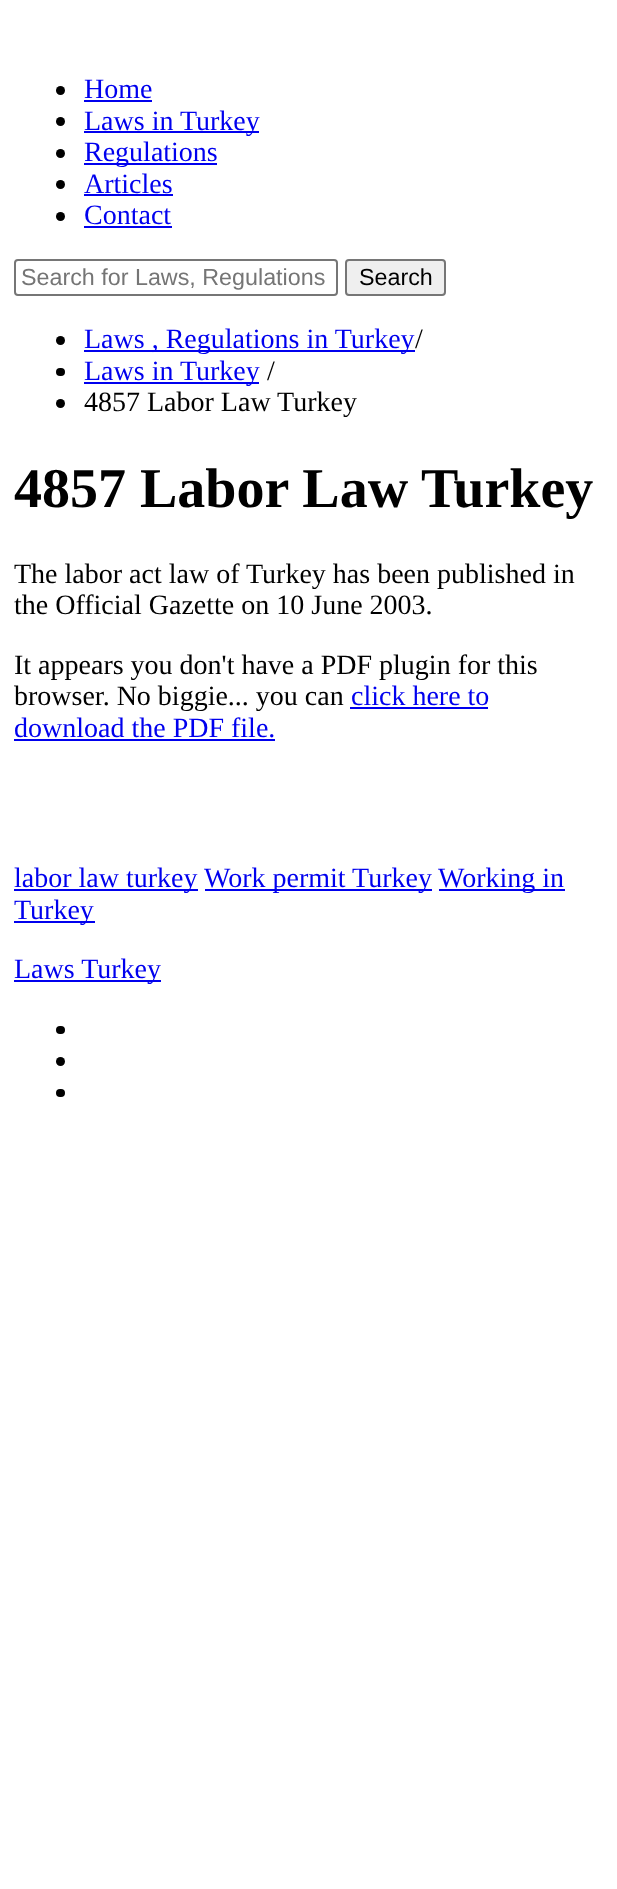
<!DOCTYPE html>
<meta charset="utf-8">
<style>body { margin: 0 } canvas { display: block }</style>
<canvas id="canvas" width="617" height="1889"></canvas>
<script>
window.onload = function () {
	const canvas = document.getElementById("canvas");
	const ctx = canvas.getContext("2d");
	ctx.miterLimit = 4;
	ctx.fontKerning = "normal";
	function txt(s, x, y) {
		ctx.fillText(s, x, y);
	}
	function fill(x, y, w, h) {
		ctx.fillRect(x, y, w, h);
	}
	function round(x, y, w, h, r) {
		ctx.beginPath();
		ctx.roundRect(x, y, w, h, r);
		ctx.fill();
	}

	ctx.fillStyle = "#FFFFFF";
	fill(0, 0, 617, 1889);
	ctx.fillStyle = "#000000";
	ctx.beginPath();
	ctx.arc(60.5, 90.5, 4.5, 0, Math.PI * 2);
	ctx.fill();
	ctx.fillStyle = "#0000EE";
	fill(84, 100, 68, 2);
	ctx.fillStyle = "#000000";
	ctx.beginPath();
	ctx.arc(60.5, 121.5, 4.5, 0, Math.PI * 2);
	ctx.fill();
	ctx.fillStyle = "#0000EE";
	fill(84, 131, 175, 2);
	ctx.fillStyle = "#000000";
	ctx.beginPath();
	ctx.arc(60.5, 153.5, 4.5, 0, Math.PI * 2);
	ctx.fill();
	ctx.fillStyle = "#0000EE";
	fill(84, 163, 133, 2);
	ctx.fillStyle = "#000000";
	ctx.beginPath();
	ctx.arc(60.5, 184.5, 4.5, 0, Math.PI * 2);
	ctx.fill();
	ctx.fillStyle = "#0000EE";
	fill(84, 194, 89, 2);
	ctx.fillStyle = "#000000";
	ctx.beginPath();
	ctx.arc(60.5, 216.5, 4.5, 0, Math.PI * 2);
	ctx.fill();
	ctx.fillStyle = "#0000EE";
	fill(84, 226, 88, 2);
	ctx.beginPath();
	ctx.roundRect(15, 260, 322, 35, 3);
	ctx.strokeStyle = "#767676";
	ctx.lineWidth = 2;
	ctx.stroke();
	ctx.fillStyle = "#EFEFEF";
	ctx.beginPath();
	ctx.roundRect(346, 260, 99, 35, 3);
	ctx.fill();
	ctx.stroke();
	ctx.fillStyle = "#000000";
	ctx.beginPath();
	ctx.arc(60.5, 340.5, 4.5, 0, Math.PI * 2);
	ctx.fill();
	ctx.fillStyle = "#0000EE";
	fill(84, 350, 331, 2);
	ctx.fillStyle = "#000000";
	round(56, 368, 9, 8, 4);
	ctx.fillStyle = "#0000EE";
	fill(84, 382, 175, 2);
	ctx.fillStyle = "#000000";
	ctx.beginPath();
	ctx.arc(60.5, 403.5, 4.5, 0, Math.PI * 2);
	ctx.fill();
	ctx.fillStyle = "#0000EE";
	fill(350, 707, 138, 2);
	fill(14, 739, 261, 2);
	fill(14, 889, 184, 2);
	fill(205, 889, 227, 2);
	fill(439, 889, 126, 2);
	fill(14, 921, 81, 2);
	fill(14, 980, 147, 2);
	ctx.fillStyle = "#000000";
	round(56, 1026, 9, 8, 4);
	ctx.beginPath();
	ctx.arc(60.5, 1061.5, 4.5, 0, Math.PI * 2);
	ctx.fill();
	round(56, 1089, 9, 8, 4);
	ctx.font = "28px Liberation Serif";
	ctx.fillStyle = "#0000EE";
	txt("Home", 84, 98);
	txt("Laws in Turkey", 84, 130);
	txt("Regulations", 84, 161);
	txt("Articles", 84, 193);
	txt("Contact", 84, 224);
	ctx.font = "23.3px Liberation Sans";
	ctx.fillStyle = "#757575";
	txt("Search for Laws, Regulations", 21, 285);
	ctx.fillStyle = "#000000";
	txt("Search", 359, 285);
	ctx.font = "28px Liberation Serif";
	ctx.fillStyle = "#0000EE";
	txt("Laws , Regulations in Turkey", 84, 348);
	ctx.fillStyle = "#000000";
	txt("/", 415, 348);
	ctx.fillStyle = "#0000EE";
	txt("Laws in Turkey", 84, 380);
	ctx.fillStyle = "#000000";
	txt("/", 267, 380);
	txt("4857 Labor Law Turkey", 84, 411);
	ctx.font = "bold 56px Liberation Serif";
	txt("4857 Labor Law Turkey", 14, 507);
	ctx.font = "28px Liberation Serif";
	txt("The labor act law of Turkey has been published in", 14, 583);
	txt("the Official Gazette on 10 June 2003.", 14, 614);
	txt("It appears you don't have a PDF plugin for this", 14, 674);
	txt("browser. No biggie... you can", 14, 705);
	ctx.fillStyle = "#0000EE";
	txt("click here to", 351, 705);
	txt("download the PDF file.", 14, 737);
	txt("labor law turkey", 14, 887);
	txt("Work permit Turkey", 204, 887);
	txt("Working in", 438, 887);
	txt("Turkey", 14, 919);
	txt("Laws Turkey", 14, 978);
};
</script>
